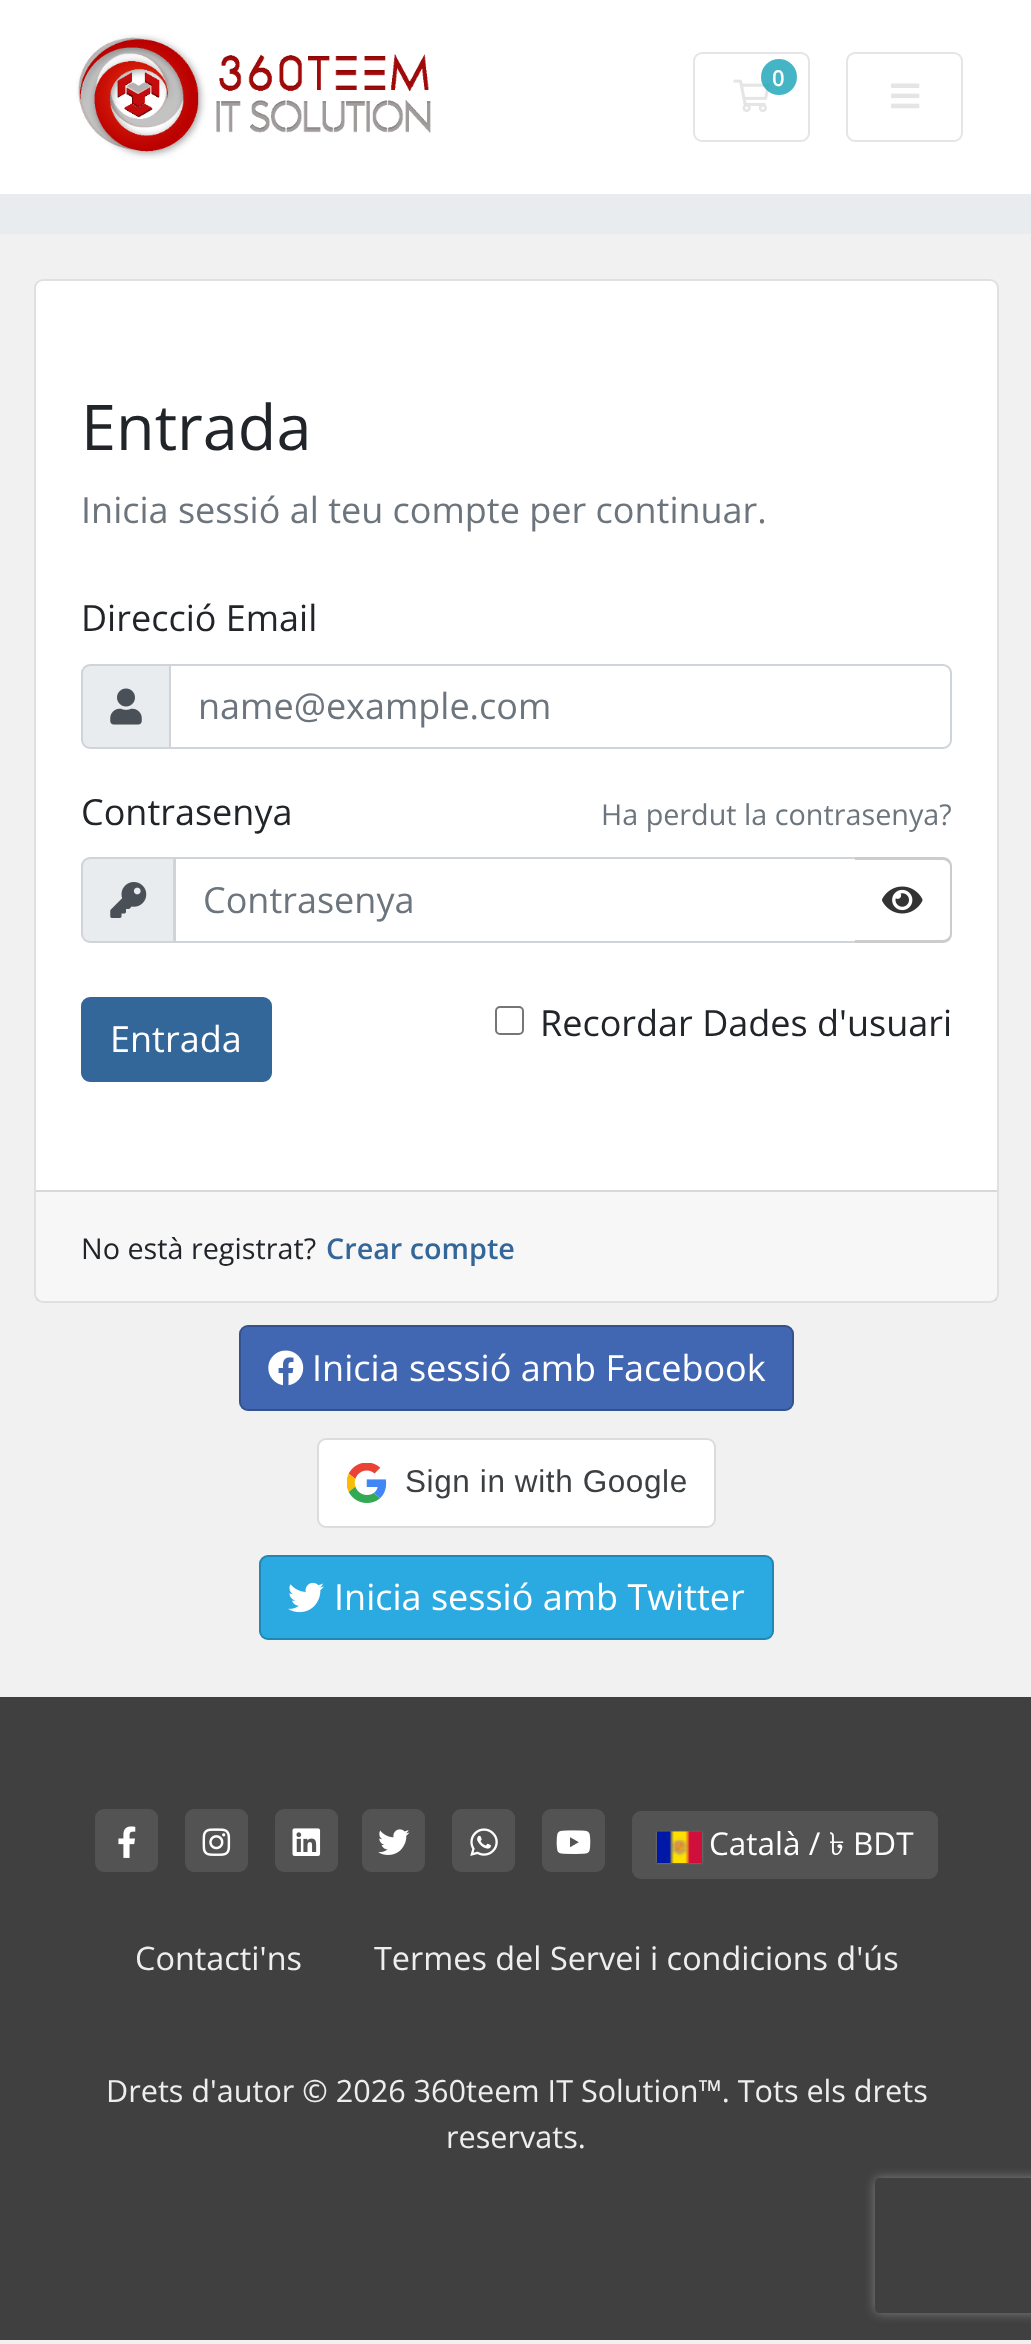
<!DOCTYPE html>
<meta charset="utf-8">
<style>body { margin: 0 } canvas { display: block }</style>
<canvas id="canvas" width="1031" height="2344"></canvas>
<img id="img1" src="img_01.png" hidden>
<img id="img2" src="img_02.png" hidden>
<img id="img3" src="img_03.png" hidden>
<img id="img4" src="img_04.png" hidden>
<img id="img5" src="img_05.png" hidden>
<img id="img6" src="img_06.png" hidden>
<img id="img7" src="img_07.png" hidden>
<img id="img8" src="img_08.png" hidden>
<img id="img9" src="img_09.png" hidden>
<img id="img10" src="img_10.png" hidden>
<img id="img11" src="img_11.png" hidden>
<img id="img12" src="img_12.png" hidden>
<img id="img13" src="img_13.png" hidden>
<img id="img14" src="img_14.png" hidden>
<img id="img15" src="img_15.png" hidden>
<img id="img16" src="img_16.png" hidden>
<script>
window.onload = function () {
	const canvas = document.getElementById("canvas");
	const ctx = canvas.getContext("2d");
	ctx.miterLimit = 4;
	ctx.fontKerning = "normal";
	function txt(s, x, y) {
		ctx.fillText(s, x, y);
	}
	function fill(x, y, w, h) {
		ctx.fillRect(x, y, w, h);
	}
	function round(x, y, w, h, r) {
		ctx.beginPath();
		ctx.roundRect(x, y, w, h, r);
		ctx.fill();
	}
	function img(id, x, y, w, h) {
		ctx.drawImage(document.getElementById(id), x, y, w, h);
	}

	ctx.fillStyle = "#F1F1F1";
	fill(0, 0, 1031, 2344);
	ctx.fillStyle = "#FFFFFF";
	fill(0, 0, 1031, 194);
	img("img1", 76, 34, 355, 125);
	ctx.beginPath();
	ctx.roundRect(694, 53, 115, 88, 8);
	ctx.strokeStyle = "#E5E5E5";
	ctx.lineWidth = 2;
	ctx.stroke();
	img("img2", 733, 79, 37, 33);
	ctx.fillStyle = "rgba(23, 162, 184, 0.8)";
	ctx.beginPath();
	ctx.arc(779, 77, 18, 0, Math.PI * 2);
	ctx.fill();
	ctx.beginPath();
	ctx.roundRect(847, 53, 115, 88, 8);
	ctx.stroke();
	img("img3", 891, 83, 29, 26);
	ctx.fillStyle = "#E9ECEF";
	fill(0, 194, 1031, 40);
	ctx.fillStyle = "#FFFFFF";
	round(34, 279, 965, 1024, 9);
	ctx.beginPath();
	ctx.roundRect(35, 280, 963, 1022, 8);
	ctx.strokeStyle = "rgba(0, 0, 0, 0.12)";
	ctx.stroke();
	ctx.fillStyle = "#E9ECEF";
	ctx.beginPath();
	ctx.roundRect(82, 665, 88, 83, [8, 0, 0, 8]);
	ctx.fill();
	ctx.strokeStyle = "#CED4DA";
	ctx.stroke();
	img("img4", 110, 688, 32, 37);
	ctx.beginPath();
	ctx.roundRect(170, 665, 781, 83, [0, 8, 8, 0]);
	ctx.stroke();
	ctx.beginPath();
	ctx.roundRect(82, 858, 93, 84, [8, 0, 0, 8]);
	ctx.fill();
	ctx.stroke();
	img("img5", 110, 882, 37, 36);
	ctx.strokeRect(174, 858, 682, 84);
	ctx.fillStyle = "#FFFFFF";
	ctx.beginPath();
	ctx.roundRect(855, 857, 97, 86, [0, 9, 9, 0]);
	ctx.fill();
	ctx.fillStyle = "#CCCCCC";
	ctx.beginPath();
	ctx.moveTo(855, 857);
	ctx.lineTo(943, 857);
	ctx.bezierCurveTo(948, 857, 952, 861, 952, 866);
	ctx.lineTo(952, 934);
	ctx.bezierCurveTo(952, 939, 948, 943, 943, 943);
	ctx.lineTo(855, 943);
	ctx.closePath();
	ctx.moveTo(855, 860);
	ctx.lineTo(943, 860);
	ctx.bezierCurveTo(946, 860, 950, 863, 950, 866);
	ctx.lineTo(950, 934);
	ctx.bezierCurveTo(950, 937, 946, 940, 943, 940);
	ctx.lineTo(855, 940);
	ctx.closePath();
	ctx.fill("evenodd");
	img("img6", 882, 886, 41, 28);
	ctx.fillStyle = "#336699";
	ctx.beginPath();
	ctx.roundRect(82, 998, 189, 83, 8);
	ctx.fill();
	ctx.strokeStyle = "#336699";
	ctx.stroke();
	ctx.beginPath();
	ctx.roundRect(496, 1007, 27, 27, 4);
	ctx.strokeStyle = "#767676";
	ctx.stroke();
	ctx.fillStyle = "rgba(0, 0, 0, 0.03)";
	fill(36, 1192, 961, 109);
	ctx.fillStyle = "#D8D8D8";
	fill(36, 1190, 961, 2);
	ctx.fillStyle = "#404040";
	fill(0, 1697, 1031, 643);
	ctx.save();
	ctx.beginPath();
	ctx.moveTo(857, 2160);
	ctx.lineTo(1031, 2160);
	ctx.lineTo(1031, 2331);
	ctx.lineTo(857, 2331);
	ctx.closePath();
	ctx.moveTo(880, 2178);
	ctx.lineTo(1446, 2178);
	ctx.bezierCurveTo(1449, 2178, 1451, 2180, 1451, 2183);
	ctx.lineTo(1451, 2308);
	ctx.bezierCurveTo(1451, 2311, 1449, 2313, 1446, 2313);
	ctx.lineTo(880, 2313);
	ctx.bezierCurveTo(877, 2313, 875, 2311, 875, 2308);
	ctx.lineTo(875, 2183);
	ctx.bezierCurveTo(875, 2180, 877, 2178, 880, 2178);
	ctx.closePath();
	ctx.clip("evenodd");
	ctx.fillStyle = "#808080";
	ctx.filter = "blur(5.5px)";
	ctx.beginPath();
	ctx.roundRect(875, 2178, 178, 135, 5);
	ctx.fill();
	ctx.filter = "none";
	ctx.restore();
	ctx.fillStyle = "#4267B2";
	round(239, 1325, 555, 86, 9);
	ctx.beginPath();
	ctx.roundRect(240, 1326, 553, 84, 8);
	ctx.strokeStyle = "rgba(0, 0, 0, 0.2)";
	ctx.stroke();
	img("img7", 268, 1350, 36, 36);
	ctx.fillStyle = "#FFFFFF";
	ctx.beginPath();
	ctx.roundRect(318, 1439, 397, 88, 8);
	ctx.fill();
	ctx.strokeStyle = "#DADCE0";
	ctx.stroke();
	img("img8", 347, 1463, 40, 40);
	ctx.fillStyle = "#2BA9E1";
	round(259, 1555, 515, 85, 9);
	ctx.beginPath();
	ctx.roundRect(260, 1556, 513, 83, 8);
	ctx.strokeStyle = "rgba(0, 0, 0, 0.2)";
	ctx.stroke();
	img("img9", 288, 1582, 36, 31);
	ctx.fillStyle = "#535353";
	round(95, 1809, 63, 63, 9);
	img("img10", 118, 1826, 18, 32);
	round(185, 1809, 63, 63, 9);
	img("img11", 202, 1828, 29, 28);
	round(275, 1809, 63, 63, 9);
	img("img12", 292, 1828, 29, 28);
	round(362, 1809, 63, 63, 9);
	img("img13", 378, 1829, 32, 26);
	round(452, 1809, 63, 63, 9);
	img("img14", 470, 1828, 28, 28);
	round(542, 1809, 63, 63, 9);
	img("img15", 556, 1830, 35, 24);
	round(632, 1811, 306, 68, 9);
	ctx.fillStyle = "#888888";
	ctx.filter = "blur(1px)";
	ctx.beginPath();
	ctx.rect(657, 1832, 45, 31);
	ctx.fill();
	ctx.filter = "none";
	img("img16", 657, 1831, 45, 32);
	ctx.font = "600 22px Open Sans";
	ctx.fillStyle = "#FFFFFF";
	txt("0", 772, 86);
	ctx.font = "63px Open Sans";
	ctx.fillStyle = "#212529";
	txt("Entrada", 81, 450);
	ctx.font = "36px Open Sans";
	ctx.fillStyle = "#6C757D";
	txt("Inicia sessió al teu compte per continuar.", 81, 523);
	ctx.fillStyle = "#212529";
	txt("Direcció Email", 81, 631);
	ctx.fillStyle = "#6C757D";
	txt("name@example.com", 198, 719);
	ctx.fillStyle = "#212529";
	txt("Contrasenya", 81, 825);
	ctx.font = "28.75px Open Sans";
	ctx.fillStyle = "#6C757D";
	txt("Ha perdut la contrasenya?", 601, 825);
	ctx.font = "36px Open Sans";
	txt("Contrasenya", 203, 913);
	ctx.fillStyle = "#FFFFFF";
	txt("Entrada", 110, 1052);
	ctx.fillStyle = "#212529";
	txt("Recordar Dades d'usuari", 540, 1036);
	ctx.font = "28.75px Open Sans";
	txt("No està registrat?", 81, 1259);
	ctx.font = "600 28.75px Open Sans";
	ctx.fillStyle = "#336699";
	txt("Crear compte", 326, 1259);
	ctx.font = "36px Open Sans";
	ctx.fillStyle = "#FFFFFF";
	txt("Inicia sessió amb Facebook", 312, 1381);
	ctx.letterSpacing = "0.6px";
	ctx.font = "31.5px Liberation Sans";
	ctx.fillStyle = "#3C4043";
	txt("Sign in with Google", 405, 1492);
	ctx.letterSpacing = "0px";
	ctx.font = "36px Open Sans";
	ctx.fillStyle = "#FFFFFF";
	txt("Inicia sessió amb Twitter", 334, 1610);
	ctx.font = "31.5px Open Sans";
	txt("Català /", 709, 1855);
	ctx.font = "31.5px Lohit Bengali";
	txt("৳", 829, 1855);
	ctx.font = "31.5px Open Sans";
	txt("BDT", 853, 1855);
	ctx.font = "32.4px Open Sans";
	ctx.fillStyle = "#EEEEEE";
	txt("Contacti'ns", 135, 1970);
	txt("Termes del Servei i condicions d'ús", 374, 1970);
	ctx.font = "30.6px Open Sans";
	txt("Drets d'autor © 2026 360teem IT Solution™. Tots els drets", 106, 2102);
	txt("reservats.", 446, 2148);
};
</script>
